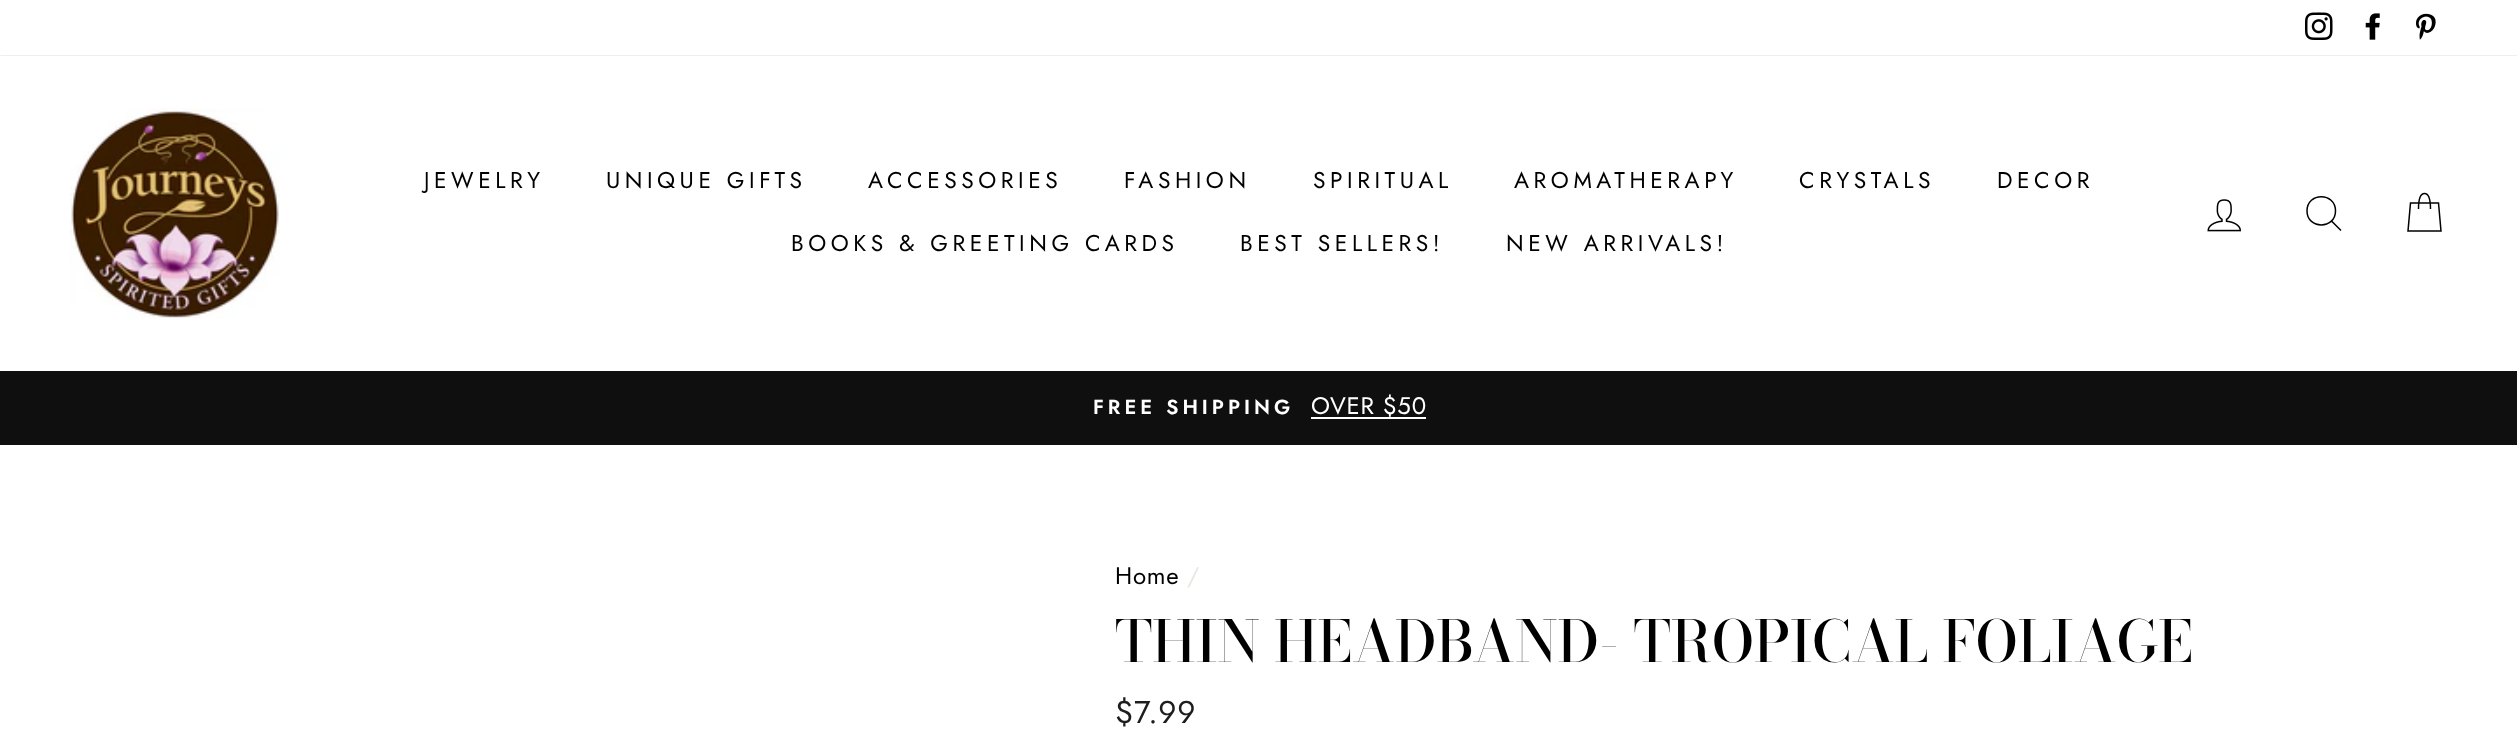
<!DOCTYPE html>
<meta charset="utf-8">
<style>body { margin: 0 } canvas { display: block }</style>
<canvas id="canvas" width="2517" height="745"></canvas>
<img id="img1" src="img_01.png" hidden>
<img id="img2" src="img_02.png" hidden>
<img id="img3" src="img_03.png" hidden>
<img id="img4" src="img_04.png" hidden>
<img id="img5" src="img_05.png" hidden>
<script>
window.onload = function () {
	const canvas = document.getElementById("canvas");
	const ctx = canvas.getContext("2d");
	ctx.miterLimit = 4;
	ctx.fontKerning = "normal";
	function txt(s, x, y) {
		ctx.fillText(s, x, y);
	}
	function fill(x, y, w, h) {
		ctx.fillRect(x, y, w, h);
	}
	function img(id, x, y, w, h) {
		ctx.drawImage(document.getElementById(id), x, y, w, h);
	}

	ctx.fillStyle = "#FFFFFF";
	fill(0, 0, 2517, 745);
	img("img1", 2305, 12, 28, 28);
	img("img2", 2365, 13, 15, 27);
	img("img3", 2416, 13, 20, 27);
	ctx.save();
	ctx.beginPath();
	ctx.rect(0, 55, 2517, 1);
	ctx.clip();
	ctx.fillStyle = "rgba(0, 0, 0, 0.2)";
	ctx.filter = "blur(1px)";
	ctx.beginPath();
	ctx.rect(0, 56, 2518, 315);
	ctx.fill();
	ctx.filter = "none";
	ctx.restore();
	img("img4", 70, 108, 210, 211);
	img("img5", 2207, 199, 34, 33);
	ctx.beginPath();
	ctx.moveTo(2335.5, 211);
	ctx.bezierCurveTo(2335.5, 229.5, 2307, 229.5, 2307, 211);
	ctx.bezierCurveTo(2307, 192, 2335.5, 192, 2335.5, 211);
	ctx.closePath();
	ctx.moveTo(2341, 230.5);
	ctx.lineTo(2331.5, 221);
	ctx.strokeStyle = "#000000";
	ctx.lineWidth = 1.5;
	ctx.stroke();
	ctx.beginPath();
	ctx.moveTo(2418.5, 209);
	ctx.bezierCurveTo(2418.5, 197, 2421, 193.5, 2424.5, 193.5);
	ctx.bezierCurveTo(2428, 193.5, 2430.5, 197, 2430.5, 209);
	ctx.moveTo(2410.5, 203);
	ctx.lineTo(2438.5, 203);
	ctx.lineTo(2441, 231);
	ctx.lineTo(2408, 231);
	ctx.closePath();
	ctx.stroke();
	ctx.fillStyle = "#0F0F0F";
	fill(0, 371, 2517, 74);
	ctx.fillStyle = "#FFFFFF";
	fill(1311, 417, 115, 2);
	ctx.letterSpacing = "4.55px";
	ctx.font = "22.75px Jost";
	ctx.fillStyle = "#000000";
	txt("JEWELRY", 424, 188);
	txt("UNIQUE GIFTS", 606, 188);
	txt("ACCESSORIES", 868, 188);
	txt("FASHION", 1124, 188);
	txt("SPIRITUAL", 1313, 188);
	txt("AROMATHERAPY", 1514, 188);
	txt("CRYSTALS", 1799, 188);
	txt("DECOR", 1997, 188);
	txt("BOOKS & GREETING CARDS", 791, 251);
	txt("BEST SELLERS!", 1240, 251);
	txt("NEW ARRIVALS!", 1506, 251);
	ctx.letterSpacing = "4px";
	ctx.font = "600 20.25px Jost";
	ctx.fillStyle = "#FFFFFF";
	txt("FREE SHIPPING", 1093, 414);
	ctx.letterSpacing = "0.75px";
	ctx.font = "24px Jost";
	txt("OVER $50", 1311, 414);
	ctx.fillStyle = "#000000";
	txt("Home", 1115, 584);
	ctx.fillStyle = "#E8E8E1";
	txt("/", 1187, 584);
	ctx.letterSpacing = "0px";
	ctx.font = "500 57.2px Bodoni Moda";
	ctx.fillStyle = "#000000";
	txt("THIN HEADBAND- TROPICAL FOLIAGE", 1115, 662);
	ctx.letterSpacing = "0.75px";
	ctx.font = "31.5px Jost";
	ctx.fillStyle = "#1C1D1D";
	txt("$7.99", 1115, 723);
};
</script>
